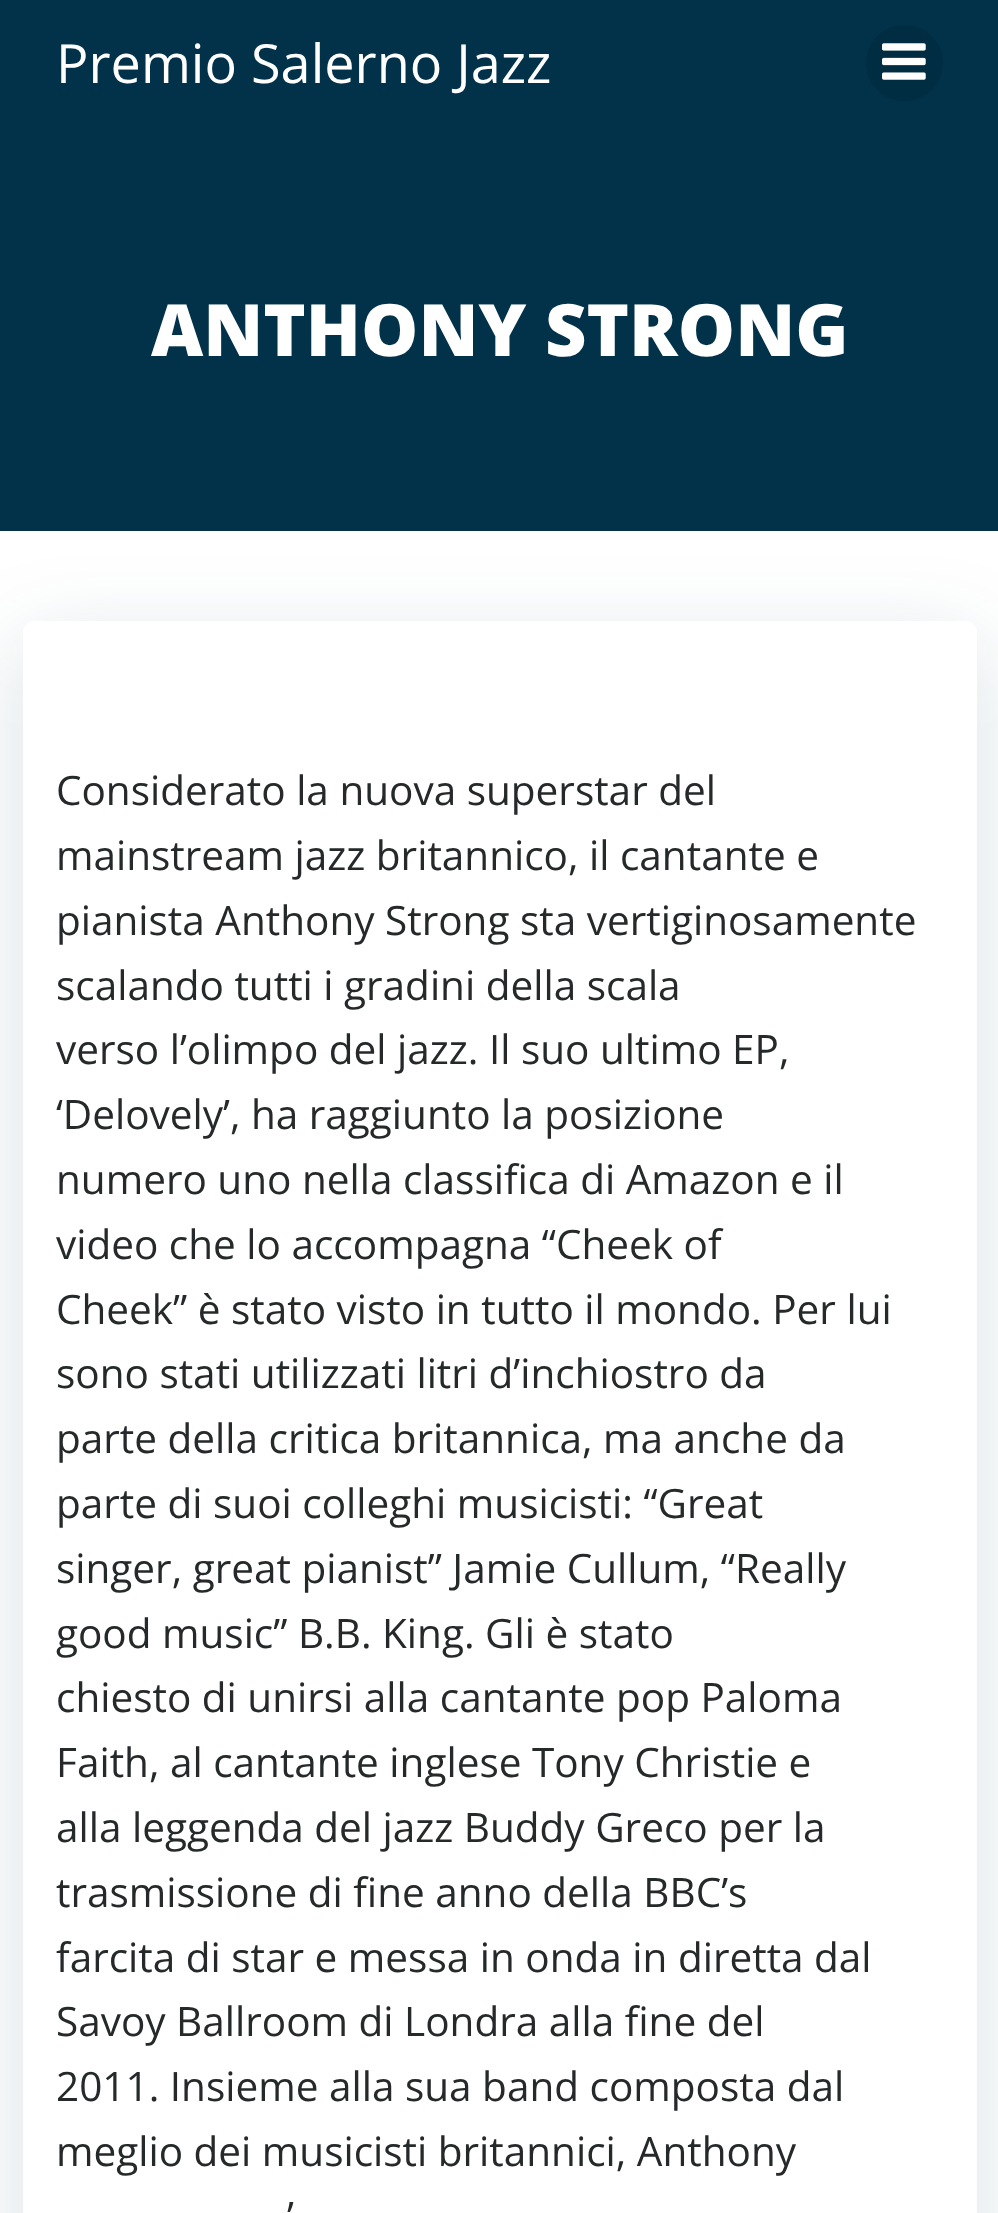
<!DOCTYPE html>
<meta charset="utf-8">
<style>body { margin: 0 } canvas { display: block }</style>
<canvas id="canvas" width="998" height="2213"></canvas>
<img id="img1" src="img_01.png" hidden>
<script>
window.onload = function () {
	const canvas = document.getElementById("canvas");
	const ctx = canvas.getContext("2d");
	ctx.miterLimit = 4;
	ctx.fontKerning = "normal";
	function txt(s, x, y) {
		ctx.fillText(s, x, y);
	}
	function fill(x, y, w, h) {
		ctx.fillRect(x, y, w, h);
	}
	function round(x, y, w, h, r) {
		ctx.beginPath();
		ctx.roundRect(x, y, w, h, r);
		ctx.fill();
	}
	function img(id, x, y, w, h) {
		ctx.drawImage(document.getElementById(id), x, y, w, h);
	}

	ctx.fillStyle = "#FFFFFF";
	fill(0, 0, 998, 2213);
	ctx.fillStyle = "#013249";
	fill(0, 0, 998, 531);
	ctx.fillStyle = "#012D42";
	round(866, 25, 77, 76, 38);
	img("img1", 882, 43, 44, 37);
	ctx.fillStyle = "rgba(1, 51, 74, 0.15)";
	ctx.filter = "blur(45px)";
	ctx.beginPath();
	ctx.roundRect(23, 644, 954, 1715, 11);
	ctx.fill();
	ctx.filter = "none";
	ctx.fillStyle = "#FFFFFF";
	round(23, 621, 954, 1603, 11);
	ctx.font = "54px Open Sans";
	txt("Premio Salerno Jazz", 56, 83);
	ctx.font = "800 72px Open Sans";
	txt("ANTHONY STRONG", 151, 356);
	ctx.font = "40.5px Open Sans";
	ctx.fillStyle = "#25292A";
	txt("Considerato la nuova superstar del", 56, 805);
	txt("mainstream jazz britannico, il cantante e", 56, 870);
	txt("pianista Anthony Strong sta vertiginosamente", 56, 935);
	txt("scalando tutti i gradini della scala", 56, 1000);
	txt("verso l’olimpo del jazz. Il suo ultimo EP,", 56, 1064);
	txt("‘Delovely’, ha raggiunto la posizione", 56, 1129);
	txt("numero uno nella classifica di Amazon e il", 56, 1194);
	txt("video che lo accompagna “Cheek of", 56, 1259);
	txt("Cheek” è stato visto in tutto il mondo. Per lui", 56, 1324);
	txt("sono stati utilizzati litri d’inchiostro da", 56, 1388);
	txt("parte della critica britannica, ma anche da", 56, 1453);
	txt("parte di suoi colleghi musicisti: “Great", 56, 1518);
	txt("singer, great pianist” Jamie Cullum, “Really", 56, 1583);
	txt("good music” B.B. King. Gli è stato", 56, 1648);
	txt("chiesto di unirsi alla cantante pop Paloma", 56, 1712);
	txt("Faith, al cantante inglese Tony Christie e", 56, 1777);
	txt("alla leggenda del jazz Buddy Greco per la", 56, 1842);
	txt("trasmissione di fine anno della BBC’s", 56, 1907);
	txt("farcita di star e messa in onda in diretta dal", 56, 1972);
	txt("Savoy Ballroom di Londra alla fine del", 56, 2036);
	txt("2011. Insieme alla sua band composta dal", 56, 2101);
	txt("meglio dei musicisti britannici, Anthony", 56, 2166);
	txt("’", 287, 2231);
};
</script>
